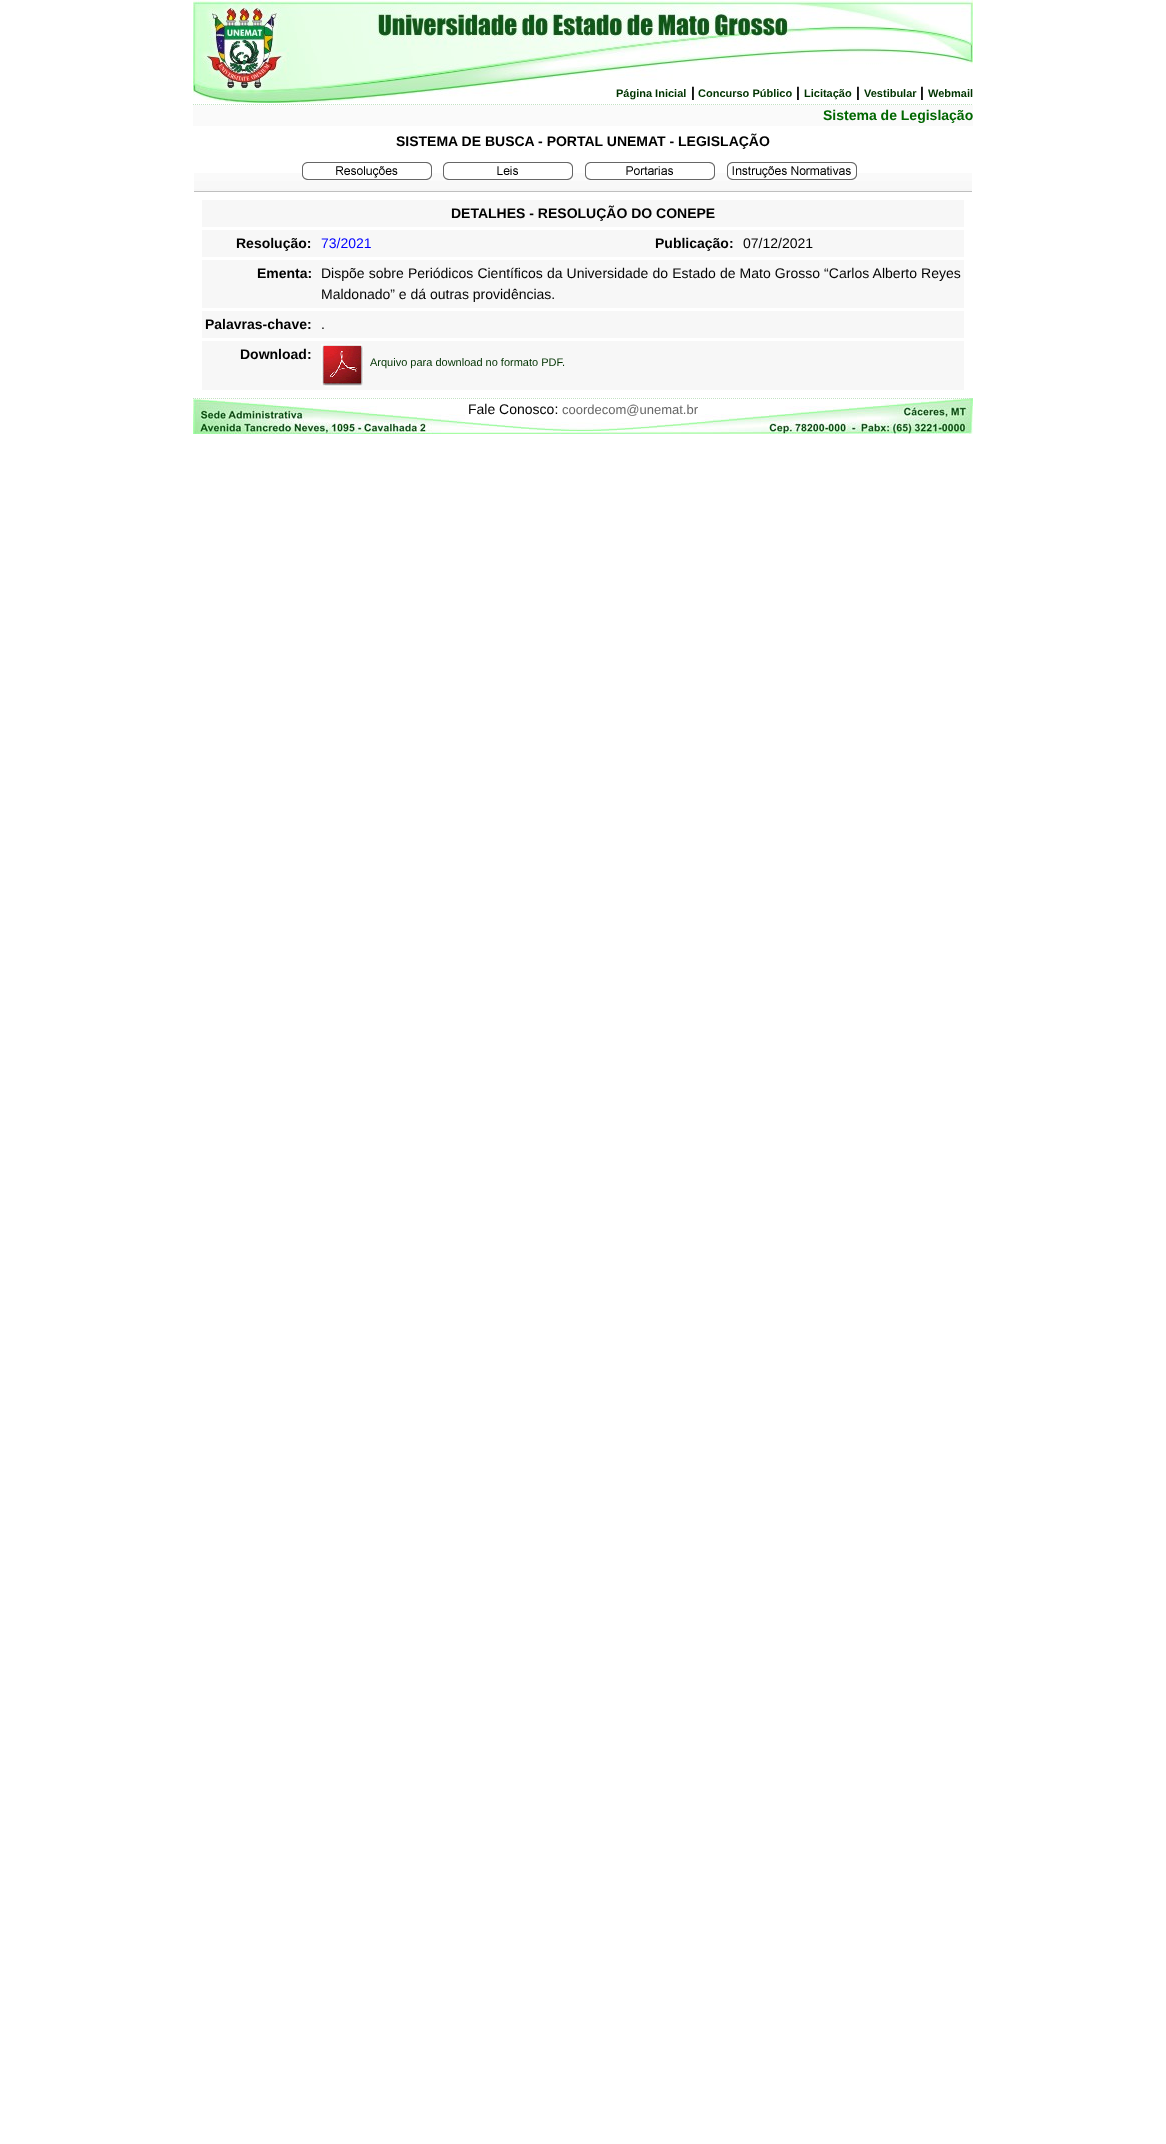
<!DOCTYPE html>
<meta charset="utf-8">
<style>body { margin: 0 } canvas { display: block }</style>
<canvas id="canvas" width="1166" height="2144"></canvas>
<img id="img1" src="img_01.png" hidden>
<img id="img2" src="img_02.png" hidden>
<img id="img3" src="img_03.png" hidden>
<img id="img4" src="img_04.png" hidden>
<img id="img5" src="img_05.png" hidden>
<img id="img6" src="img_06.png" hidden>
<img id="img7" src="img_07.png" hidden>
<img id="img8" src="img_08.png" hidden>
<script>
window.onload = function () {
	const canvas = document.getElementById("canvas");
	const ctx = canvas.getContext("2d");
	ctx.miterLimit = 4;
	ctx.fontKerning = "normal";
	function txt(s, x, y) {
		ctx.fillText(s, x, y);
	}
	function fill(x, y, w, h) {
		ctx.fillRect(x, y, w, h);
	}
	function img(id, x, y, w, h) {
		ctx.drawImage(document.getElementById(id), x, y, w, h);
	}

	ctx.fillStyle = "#FFFFFF";
	fill(0, 0, 1166, 2144);
	img("img1", 193, 0, 780, 103);
	ctx.beginPath();
	ctx.moveTo(193, 104.5);
	ctx.lineTo(973, 104.5);
	ctx.strokeStyle = "#C3E2C4";
	ctx.setLineDash([1, 1]);
	ctx.stroke();
	ctx.fillStyle = "#FAFAFA";
	fill(193, 105, 780, 21);
	img("img2", 194, 173, 778, 18);
	ctx.fillStyle = "#BFBFBF";
	fill(194, 191, 778, 1);
	img("img3", 302, 162, 130, 18);
	img("img4", 443, 162, 130, 18);
	img("img5", 585, 162, 130, 18);
	img("img6", 727, 162, 130, 18);
	ctx.fillStyle = "#F7F7F7";
	fill(202, 200, 762, 27);
	fill(202, 230, 762, 27);
	fill(202, 260, 762, 48);
	fill(202, 311, 762, 27);
	fill(202, 341, 762, 49);
	img("img7", 321, 344, 43, 43);
	img("img8", 193, 398, 780, 36);
	ctx.beginPath();
	ctx.moveTo(193, 398.5);
	ctx.lineTo(973, 398.5);
	ctx.stroke();
	ctx.font = "bold 11px Liberation Sans";
	ctx.fillStyle = "#003300";
	txt("Página Inicial", 616, 97);
	ctx.font = "bold 14px Liberation Sans";
	ctx.fillStyle = "#000000";
	txt("|", 691, 97);
	ctx.font = "bold 11px Liberation Sans";
	ctx.fillStyle = "#003300";
	txt("Concurso Público", 698, 97);
	ctx.font = "bold 14px Liberation Sans";
	ctx.fillStyle = "#000000";
	txt("|", 796, 97);
	ctx.font = "bold 11px Liberation Sans";
	ctx.fillStyle = "#003300";
	txt("Licitação", 804, 97);
	ctx.font = "bold 14px Liberation Sans";
	ctx.fillStyle = "#000000";
	txt("|", 856, 97);
	ctx.font = "bold 11px Liberation Sans";
	ctx.fillStyle = "#003300";
	txt("Vestibular", 864, 97);
	ctx.font = "bold 14px Liberation Sans";
	ctx.fillStyle = "#000000";
	txt("|", 920, 97);
	ctx.font = "bold 11px Liberation Sans";
	ctx.fillStyle = "#003300";
	txt("Webmail", 928, 97);
	ctx.font = "bold 14px Liberation Sans";
	ctx.fillStyle = "#006600";
	txt("Sistema de Legislação", 823, 120);
	ctx.fillStyle = "#000000";
	txt("SISTEMA DE BUSCA - PORTAL UNEMAT - LEGISLAÇÃO", 396, 146);
	txt("DETALHES - RESOLUÇÃO DO CONEPE", 451, 218);
	txt("Resolução:", 236, 248);
	ctx.font = "14px Liberation Sans";
	ctx.fillStyle = "#0000FF";
	txt("73/2021", 321, 248);
	ctx.font = "bold 14px Liberation Sans";
	ctx.fillStyle = "#000000";
	txt("Publicação:", 655, 248);
	ctx.font = "14px Liberation Sans";
	txt("07/12/2021", 743, 248);
	ctx.font = "bold 14px Liberation Sans";
	txt("Ementa:", 257, 278);
	ctx.wordSpacing = "0.25px";
	ctx.font = "14px Liberation Sans";
	txt("Dispõe sobre Periódicos Científicos da Universidade do Estado de Mato Grosso “Carlos Alberto Reyes", 321, 278);
	ctx.wordSpacing = "0px";
	txt("Maldonado” e dá outras providências.", 321, 299);
	ctx.font = "bold 14px Liberation Sans";
	txt("Palavras-chave:", 205, 329);
	ctx.font = "14px Liberation Sans";
	txt(".", 321, 329);
	ctx.font = "bold 14px Liberation Sans";
	txt("Download:", 240, 359);
	ctx.font = "11px Liberation Sans";
	ctx.fillStyle = "#003300";
	txt("Arquivo para download no formato PDF.", 370, 366);
	ctx.font = "14px Liberation Sans";
	ctx.fillStyle = "#000000";
	txt("Fale Conosco:", 468, 414);
	ctx.font = "13px Liberation Sans";
	ctx.fillStyle = "#666666";
	txt("coordecom@unemat.br", 562, 414);
};
</script>
